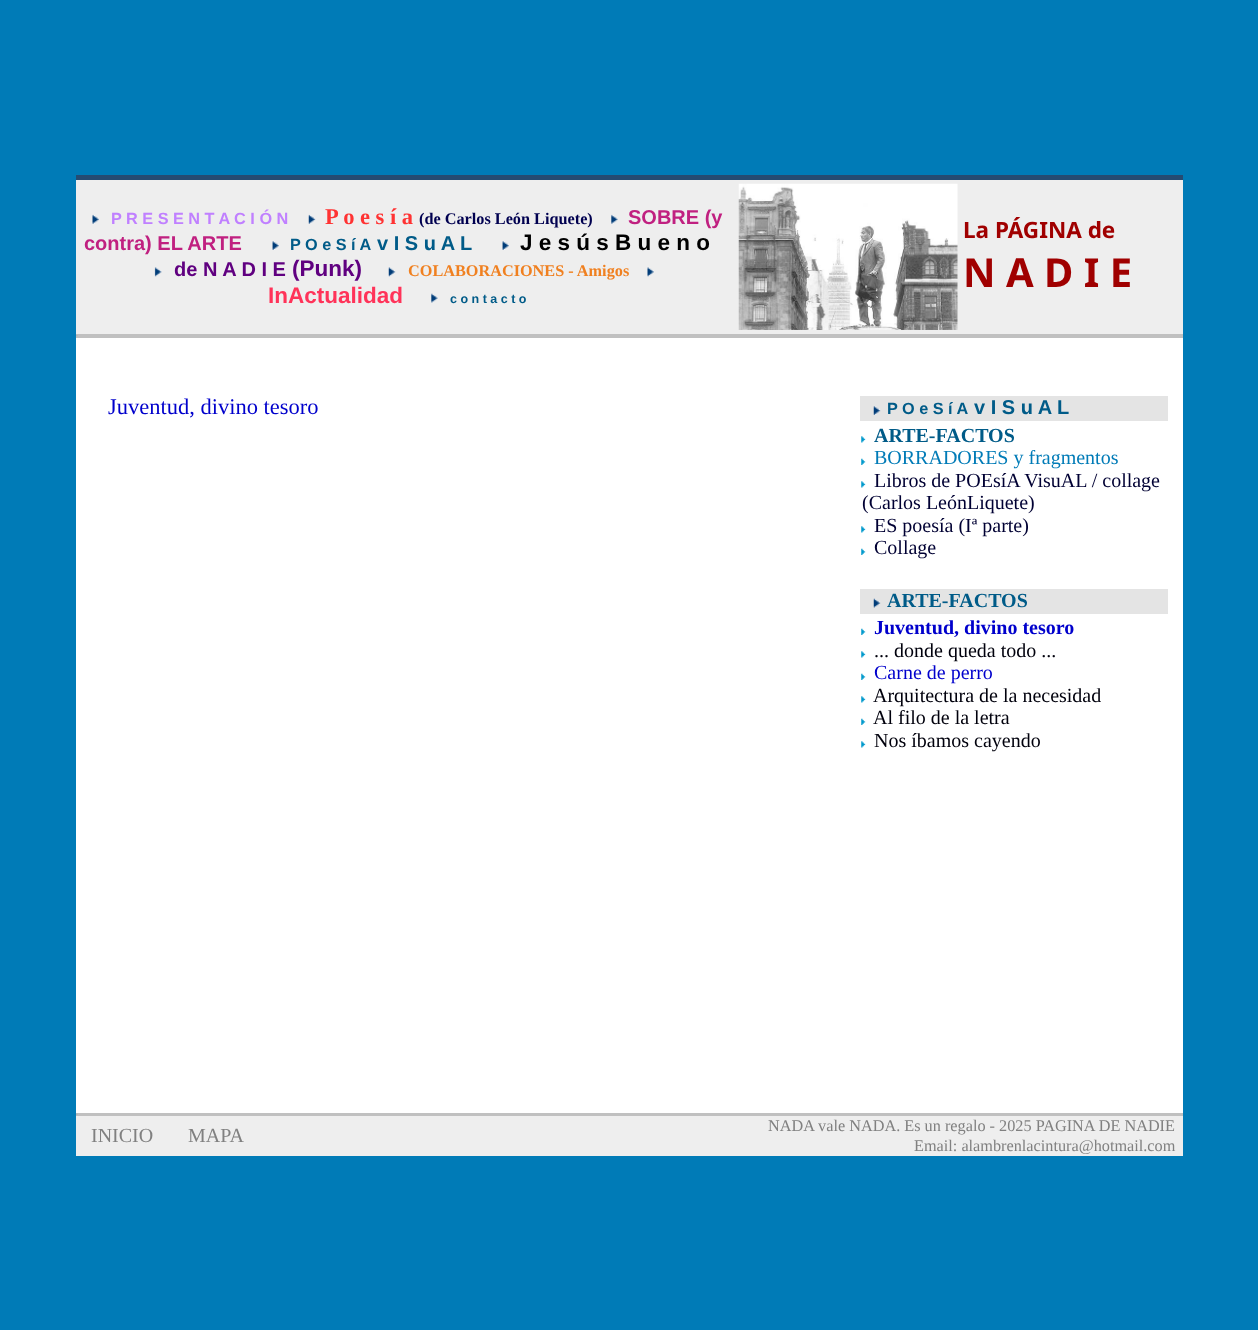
<!DOCTYPE html>
<meta charset="utf-8">
<style>body { margin: 0 } canvas { display: block }</style>
<canvas id="canvas" width="1258" height="1330"></canvas>
<img id="img1" src="img_01.png" hidden>
<img id="img2" src="img_02.png" hidden>
<img id="img3" src="img_03.png" hidden>
<img id="img4" src="img_04.png" hidden>
<img id="img5" src="img_05.png" hidden>
<img id="img6" src="img_06.png" hidden>
<img id="img7" src="img_07.png" hidden>
<img id="img8" src="img_08.png" hidden>
<img id="img9" src="img_09.png" hidden>
<img id="img10" src="img_10.png" hidden>
<img id="img11" src="img_11.png" hidden>
<img id="img12" src="img_12.png" hidden>
<img id="img13" src="img_13.png" hidden>
<img id="img14" src="img_14.png" hidden>
<img id="img15" src="img_15.png" hidden>
<script>
window.onload = function () {
	const canvas = document.getElementById("canvas");
	const ctx = canvas.getContext("2d");
	ctx.miterLimit = 4;
	ctx.fontKerning = "normal";
	function txt(s, x, y) {
		ctx.fillText(s, x, y);
	}
	function fill(x, y, w, h) {
		ctx.fillRect(x, y, w, h);
	}
	function img(id, x, y, w, h) {
		ctx.drawImage(document.getElementById(id), x, y, w, h);
	}

	ctx.fillStyle = "#007BB7";
	fill(0, 0, 1258, 1330);
	ctx.fillStyle = "#254B72";
	fill(76, 175, 1107, 5);
	ctx.fillStyle = "#EEEEEE";
	fill(76, 180, 1107, 154);
	img("img1", 92, 214, 7, 10);
	img("img2", 308, 214, 8, 10);
	img("img3", 611, 214, 7, 10);
	img("img4", 272, 241, 7, 9);
	img("img4", 502, 241, 7, 9);
	img("img5", 154, 267, 8, 10);
	img("img6", 388, 267, 8, 10);
	img("img7", 647, 267, 7, 10);
	img("img8", 431, 293, 7, 10);
	img("img9", 738, 183, 220, 147);
	ctx.fillStyle = "#C0C0C0";
	fill(76, 334, 1107, 4);
	img("img10", 76, 335, 2, 2);
	ctx.fillStyle = "#FFFFFF";
	fill(76, 338, 1107, 775);
	ctx.fillStyle = "#E4E4E4";
	fill(860, 396, 308, 25);
	img("img11", 873, 406, 8, 9);
	img("img12", 861, 436, 5, 7);
	img("img13", 861, 458, 5, 7);
	img("img12", 861, 481, 5, 7);
	img("img12", 861, 526, 5, 7);
	img("img13", 861, 548, 5, 7);
	fill(860, 589, 308, 25);
	img("img14", 873, 598, 8, 10);
	img("img13", 861, 628, 5, 7);
	img("img12", 861, 651, 5, 7);
	img("img13", 861, 673, 5, 7);
	img("img12", 861, 696, 5, 7);
	img("img13", 861, 718, 5, 7);
	img("img12", 861, 741, 5, 7);
	ctx.fillStyle = "#C0C0C0";
	fill(76, 1113, 1107, 3);
	img("img15", 76, 1113, 2, 2);
	ctx.fillStyle = "#EEEEEE";
	fill(76, 1116, 1107, 40);
	ctx.font = "bold 16.25px Liberation Sans";
	ctx.fillStyle = "#C080FF";
	txt("P R E S E N T A C I Ó N", 111, 224);
	ctx.font = "bold 22.5px Liberation Serif";
	ctx.fillStyle = "#FF3333";
	txt("P o e s í a", 325, 224);
	ctx.font = "bold 16.25px Liberation Serif";
	ctx.fillStyle = "#000050";
	txt("(de Carlos León Liquete)", 419, 224);
	ctx.font = "bold 20px Liberation Sans";
	ctx.fillStyle = "#C02080";
	txt("SOBRE (y", 628, 224);
	txt("contra) EL ARTE", 84, 250);
	ctx.font = "bold 16.25px Liberation Sans";
	ctx.fillStyle = "#005B88";
	txt("P O e S í A", 290, 250);
	ctx.font = "bold 20px Liberation Sans";
	txt("v I S u A L", 377, 250);
	ctx.font = "bold 22.5px Liberation Sans";
	ctx.fillStyle = "#000000";
	txt("J e s ú s B u e n o", 520, 250);
	ctx.font = "bold 20px Liberation Sans";
	ctx.fillStyle = "#600080";
	txt("de N A D I E", 174, 276);
	ctx.font = "bold 22.5px Liberation Sans";
	txt("(Punk)", 292, 276);
	ctx.font = "bold 16.25px Liberation Serif";
	ctx.fillStyle = "#F08020";
	txt("COLABORACIONES - Amigos", 408, 276);
	ctx.font = "bold 22.5px Liberation Sans";
	ctx.fillStyle = "#FF3359";
	txt("InActualidad", 268, 303);
	ctx.font = "bold 12.5px Liberation Sans";
	ctx.fillStyle = "#005B88";
	txt("c o n t a c t o", 450, 303);
	ctx.font = "bold 22.5px Noto Sans";
	ctx.fillStyle = "#A00000";
	txt("La PÁGINA de", 963, 238);
	ctx.font = "bold 40px Noto Sans";
	txt("N A D I E", 963, 287);
	ctx.font = "22.5px Liberation Serif";
	ctx.fillStyle = "#0000CC";
	txt("Juventud, divino tesoro", 108, 414);
	ctx.font = "bold 16.25px Liberation Sans";
	ctx.fillStyle = "#005B88";
	txt("P O e S í A", 887, 414);
	ctx.font = "bold 20px Liberation Sans";
	txt("v I S u A L", 974, 414);
	ctx.font = "bold 20px Liberation Serif";
	txt("ARTE-FACTOS", 874, 442);
	ctx.font = "20px Liberation Serif";
	ctx.fillStyle = "#007BB7";
	txt("BORRADORES y fragmentos", 874, 464);
	ctx.fillStyle = "#000033";
	txt("Libros de POEsíA VisuAL / collage", 874, 487);
	txt("(Carlos LeónLiquete)", 862, 509);
	txt("ES poesía (Iª parte)", 874, 532);
	txt("Collage", 874, 554);
	ctx.font = "bold 20px Liberation Serif";
	ctx.fillStyle = "#005B88";
	txt("ARTE-FACTOS", 887, 607);
	ctx.fillStyle = "#0000CC";
	txt("Juventud, divino tesoro", 874, 634);
	ctx.font = "20px Liberation Serif";
	ctx.fillStyle = "#00000C";
	txt("... donde queda todo ...", 874, 657);
	ctx.fillStyle = "#0000CC";
	txt("Carne de perro", 874, 679);
	ctx.fillStyle = "#00000C";
	txt("Arquitectura de la necesidad", 873, 702);
	txt("Al filo de la letra", 873, 724);
	txt("Nos íbamos cayendo", 874, 747);
	ctx.fillStyle = "#808080";
	txt("INICIO", 91, 1142);
	txt("MAPA", 188, 1142);
	ctx.font = "16.25px Liberation Serif";
	txt("NADA vale NADA. Es un regalo - 2025 PAGINA DE NADIE", 768, 1131);
	txt("Email: alambrenlacintura@hotmail.com", 914, 1151);
};
</script>
